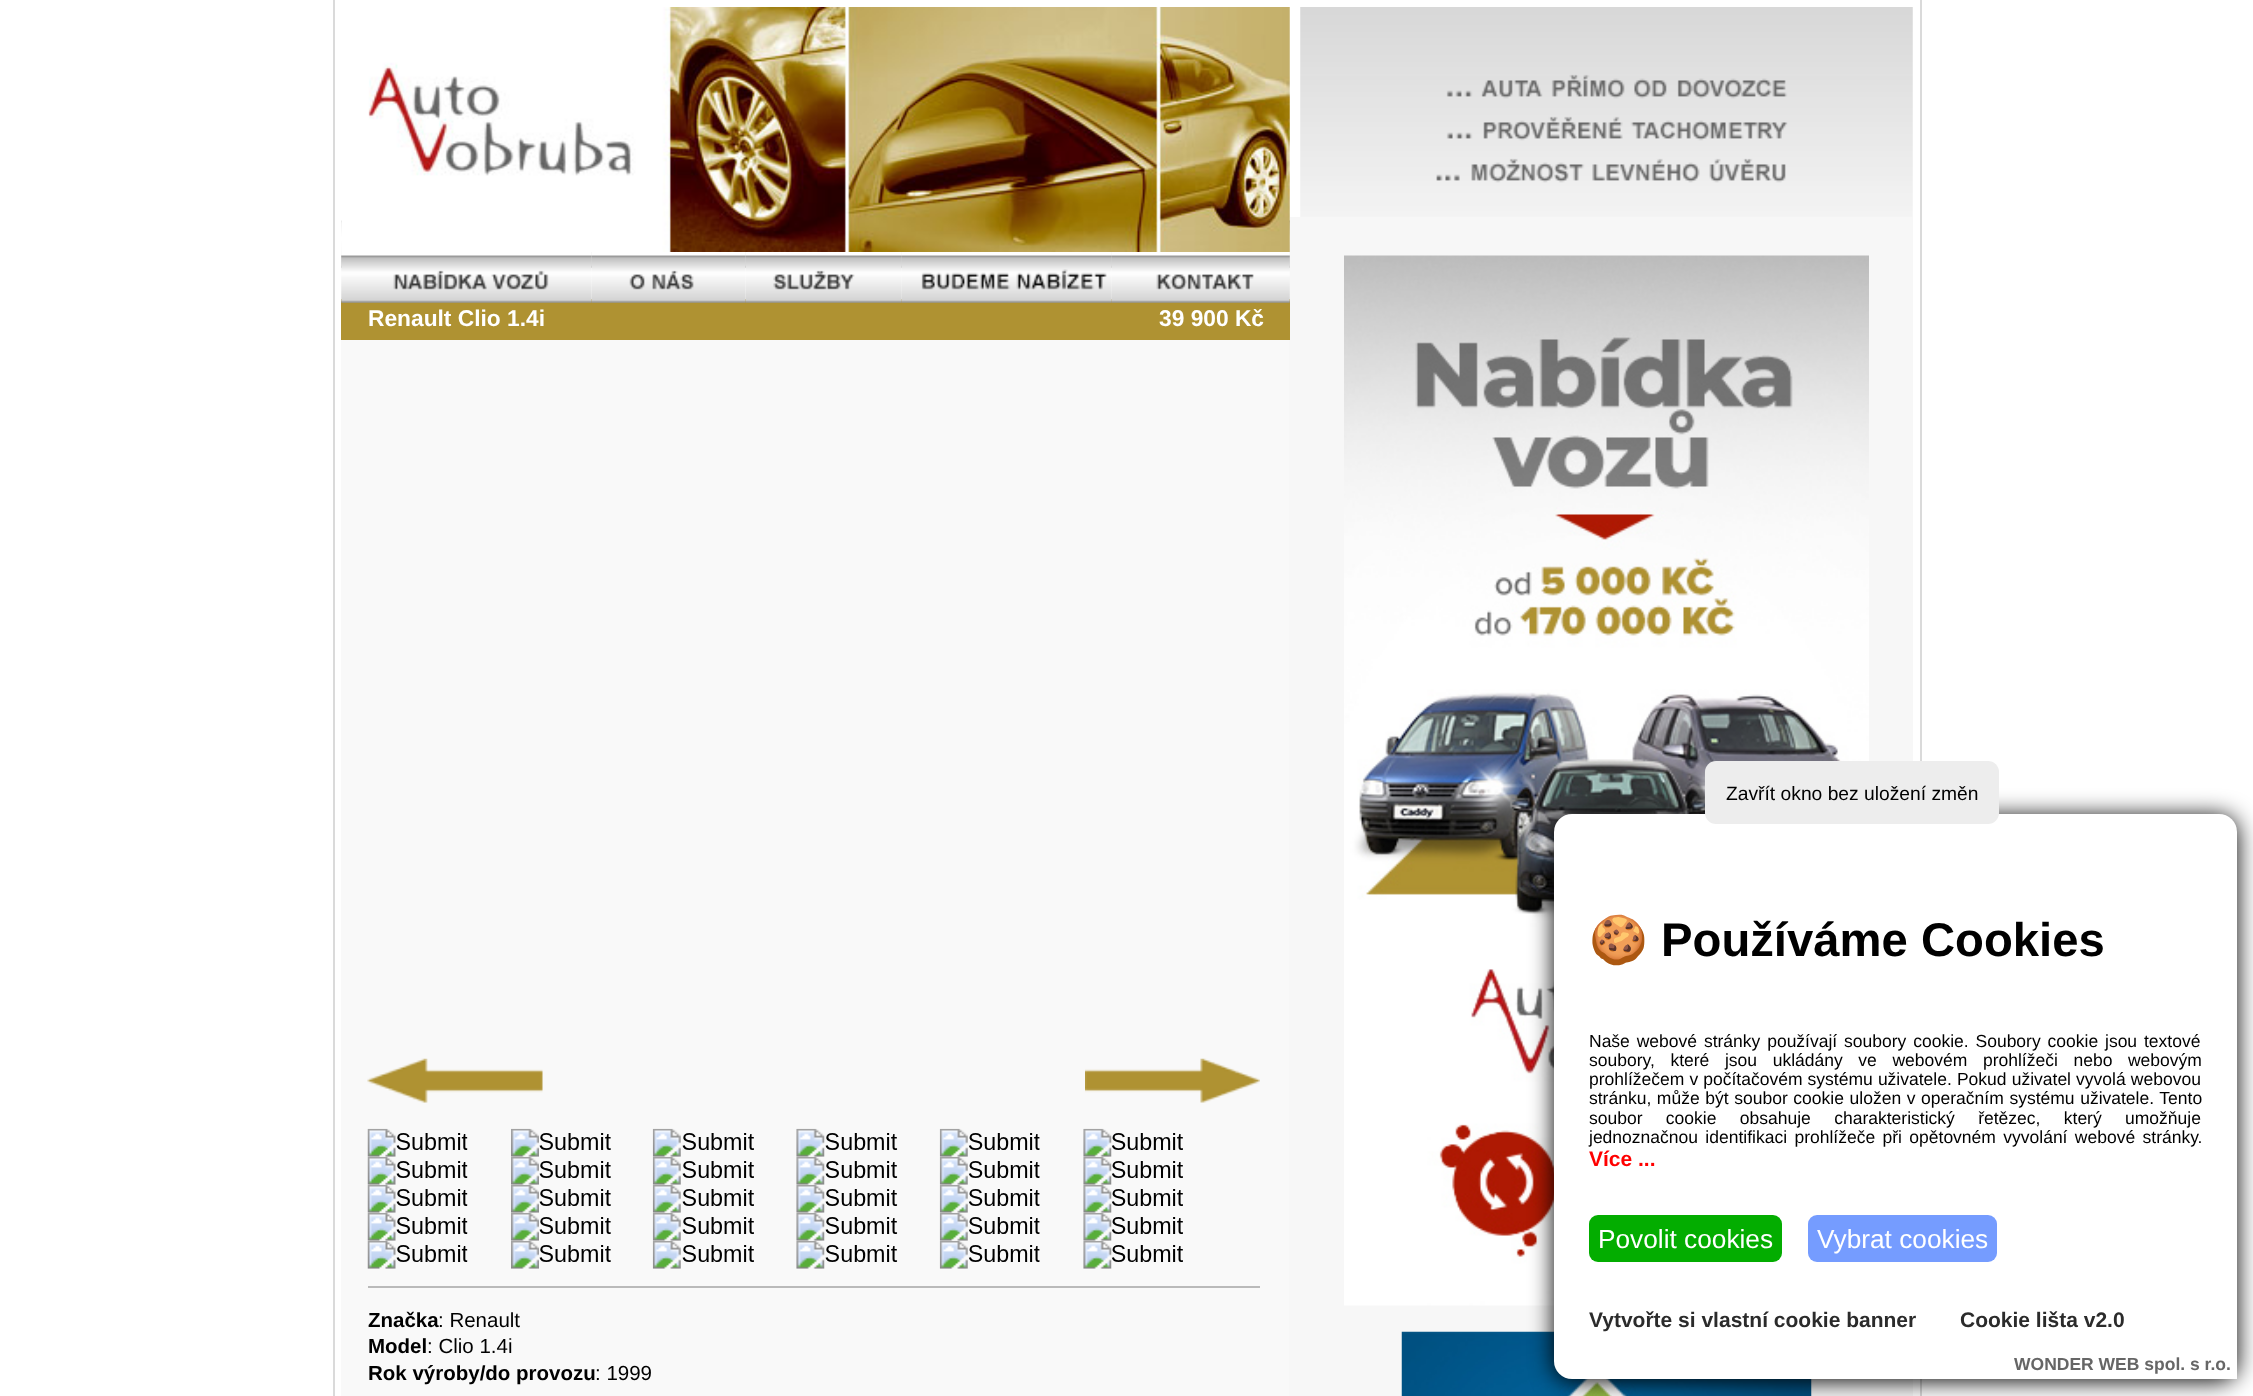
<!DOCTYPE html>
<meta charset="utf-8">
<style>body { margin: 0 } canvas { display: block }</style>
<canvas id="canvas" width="2253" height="1396"></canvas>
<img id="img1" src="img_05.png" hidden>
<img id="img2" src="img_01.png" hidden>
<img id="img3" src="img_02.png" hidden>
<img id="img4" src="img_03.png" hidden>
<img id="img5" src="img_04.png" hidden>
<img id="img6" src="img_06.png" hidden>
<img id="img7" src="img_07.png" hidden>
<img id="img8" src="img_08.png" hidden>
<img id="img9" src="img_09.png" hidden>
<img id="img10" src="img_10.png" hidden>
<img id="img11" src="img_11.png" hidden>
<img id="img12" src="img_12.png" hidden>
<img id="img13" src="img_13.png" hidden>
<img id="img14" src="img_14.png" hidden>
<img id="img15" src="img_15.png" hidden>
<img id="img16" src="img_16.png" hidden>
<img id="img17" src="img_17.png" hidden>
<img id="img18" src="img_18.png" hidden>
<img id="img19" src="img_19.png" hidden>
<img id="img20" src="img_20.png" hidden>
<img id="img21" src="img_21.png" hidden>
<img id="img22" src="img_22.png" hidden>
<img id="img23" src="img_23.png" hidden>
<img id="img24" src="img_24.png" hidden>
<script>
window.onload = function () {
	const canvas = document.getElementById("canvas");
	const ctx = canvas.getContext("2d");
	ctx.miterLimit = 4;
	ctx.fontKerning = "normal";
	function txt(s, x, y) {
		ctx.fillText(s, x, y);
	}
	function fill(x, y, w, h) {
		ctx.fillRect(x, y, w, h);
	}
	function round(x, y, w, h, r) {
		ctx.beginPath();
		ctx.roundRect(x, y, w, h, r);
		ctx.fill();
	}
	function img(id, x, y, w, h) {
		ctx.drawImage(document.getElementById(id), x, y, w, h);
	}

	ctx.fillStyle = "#FFFFFF";
	fill(0, 0, 2253, 1396);
	ctx.fillStyle = "#DADADA";
	fill(1920, 0, 2, 1396);
	fill(333, 0, 2, 1396);
	ctx.fillStyle = "#F7F7F7";
	fill(1289, 217, 624, 1179);
	img("img1", 341, 217, 949, 51);
	img("img2", 341, 7, 949, 245);
	img("img3", 1300, 7, 613, 210);
	img("img4", 1344, 255, 525, 1051);
	img("img5", 1401, 1331, 411, 65);
	ctx.fillStyle = "#AF9232";
	fill(341, 299, 949, 41);
	img("img6", 341, 252, 251, 51);
	img("img7", 591, 252, 155, 51);
	img("img8", 745, 252, 157, 51);
	img("img9", 901, 252, 211, 51);
	img("img10", 1111, 252, 179, 51);
	ctx.fillStyle = "#F9F9F9";
	fill(341, 340, 948, 1056);
	ctx.fillStyle = "#BABABA";
	fill(368, 1286, 892, 2);
	img("img11", 367, 1058, 176, 45);
	img("img12", 1085, 1058, 175, 45);
	img("img13", 367, 1128, 101, 29);
	img("img14", 511, 1128, 100, 29);
	img("img15", 652, 1128, 102, 29);
	img("img16", 796, 1128, 102, 29);
	img("img17", 939, 1128, 101, 29);
	img("img18", 1083, 1128, 100, 29);
	img("img19", 367, 1156, 101, 29);
	img("img20", 511, 1156, 100, 29);
	img("img21", 652, 1156, 102, 29);
	img("img22", 796, 1156, 102, 29);
	img("img23", 939, 1156, 101, 29);
	img("img24", 1083, 1156, 100, 29);
	img("img19", 367, 1184, 101, 29);
	img("img20", 511, 1184, 100, 29);
	img("img21", 652, 1184, 102, 29);
	img("img22", 796, 1184, 102, 29);
	img("img23", 939, 1184, 101, 29);
	img("img24", 1083, 1184, 100, 29);
	img("img19", 367, 1212, 101, 29);
	img("img20", 511, 1212, 100, 29);
	img("img21", 652, 1212, 102, 29);
	img("img22", 796, 1212, 102, 29);
	img("img23", 939, 1212, 101, 29);
	img("img24", 1083, 1212, 100, 29);
	img("img19", 367, 1240, 101, 29);
	img("img20", 511, 1240, 100, 29);
	img("img21", 652, 1240, 102, 29);
	img("img22", 796, 1240, 102, 29);
	img("img23", 939, 1240, 101, 29);
	img("img24", 1083, 1240, 100, 29);
	ctx.fillStyle = "#000000";
	ctx.filter = "blur(11.5px)";
	ctx.beginPath();
	ctx.roundRect(1554, 816, 683, 565, 18);
	ctx.fill();
	ctx.filter = "none";
	ctx.fillStyle = "#FFFFFF";
	round(1554, 814, 683, 565, 18);
	ctx.fillStyle = "#EDEDED";
	round(1705, 761, 294, 63, 11);
	ctx.fillStyle = "#03AD00";
	round(1589, 1215, 193, 47, 9);
	ctx.fillStyle = "#759CFF";
	round(1808, 1215, 189, 47, 9);
	ctx.fillStyle = "#FFFFFF";
	fill(2219, 1361, 18, 18);
	ctx.font = "bold 22.75px Liberation Sans";
	txt("Renault Clio 1.4i", 368, 326);
	txt("39 900 Kč", 1159, 326);
	ctx.font = "bold 20.5px Liberation Sans";
	ctx.fillStyle = "#000000";
	txt("Značka", 368, 1327);
	ctx.font = "20.5px Liberation Sans";
	txt(": Renault", 438, 1327);
	ctx.font = "bold 20.5px Liberation Sans";
	txt("Model", 368, 1353);
	ctx.font = "20.5px Liberation Sans";
	txt(": Clio 1.4i", 427, 1353);
	ctx.font = "bold 20.5px Liberation Sans";
	txt("Rok výroby/do provozu", 368, 1380);
	ctx.font = "20.5px Liberation Sans";
	txt(": 1999", 595, 1380);
	ctx.font = "19.25px Liberation Sans";
	txt("Zavřít okno bez uložení změn", 1726, 800);
	ctx.font = "bold 47.25px Noto Color Emoji";
	txt("🍪", 1589, 956);
	ctx.font = "bold 47.25px Liberation Sans";
	txt("Používáme Cookies", 1661, 956);
	ctx.wordSpacing = "2px";
	ctx.font = "17.5px Liberation Sans";
	txt("Naše webové stránky používají soubory cookie. Soubory cookie jsou textové", 1589, 1047);
	ctx.wordSpacing = "10.75px";
	txt("soubory, které jsou ukládány ve webovém prohlížeči nebo webovým", 1589, 1066);
	ctx.wordSpacing = "0.25px";
	txt("prohlížečem v počítačovém systému uživatele. Pokud uživatel vyvolá webovou", 1589, 1085);
	ctx.wordSpacing = "0.75px";
	txt("stránku, může být soubor cookie uložen v operačním systému uživatele. Tento", 1589, 1104);
	ctx.wordSpacing = "18.5px";
	txt("soubor cookie obsahuje charakteristický řetězec, který umožňuje", 1589, 1124);
	ctx.wordSpacing = "2.5px";
	txt("jednoznačnou identifikaci prohlížeče při opětovném vyvolání webové stránky.", 1589, 1143);
	ctx.wordSpacing = "0px";
	ctx.font = "bold 21px Liberation Sans";
	ctx.fillStyle = "#FF0000";
	txt("Více ...", 1589, 1166);
	ctx.font = "26.25px Liberation Sans";
	ctx.fillStyle = "#FFFFFF";
	txt("Povolit cookies", 1598, 1248);
	txt("Vybrat cookies", 1817, 1248);
	ctx.font = "bold 21px Liberation Sans";
	ctx.fillStyle = "#2B2B2B";
	txt("Vytvořte si vlastní cookie banner", 1589, 1327);
	txt("Cookie lišta v2.0", 1960, 1327);
	ctx.font = "bold 17.5px Liberation Sans";
	ctx.fillStyle = "#666666";
	txt("WONDER WEB spol. s r.o.", 2014, 1370);
};
</script>
